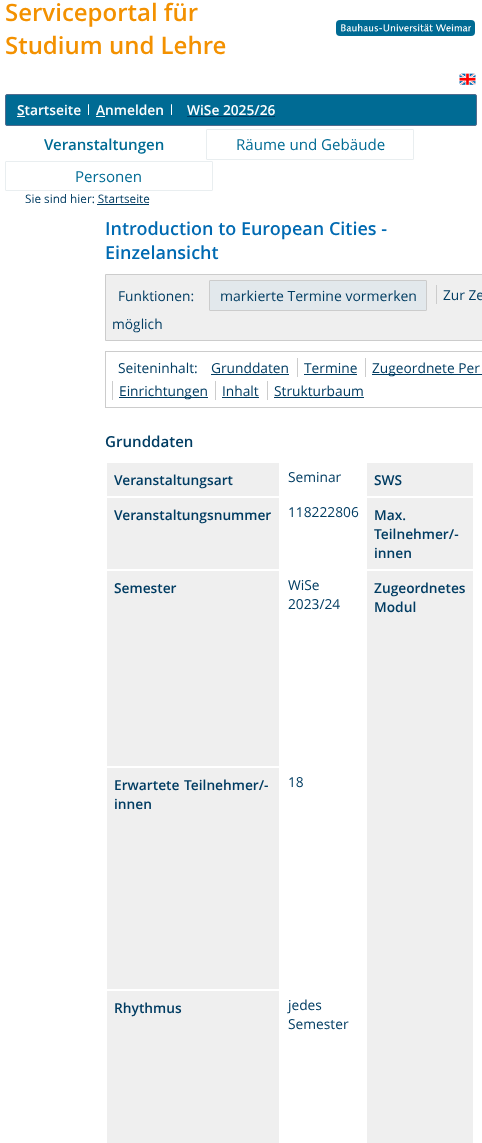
<!DOCTYPE html>
<meta charset="utf-8">
<style>body { margin: 0 } canvas { display: block }</style>
<canvas id="canvas" width="482" height="1143"></canvas>
<img id="img1" src="img_01.png" hidden>
<img id="img2" src="img_02.png" hidden>
<img id="img3" src="img_03.png" hidden>
<script>
window.onload = function () {
	const canvas = document.getElementById("canvas");
	const ctx = canvas.getContext("2d");
	ctx.miterLimit = 4;
	ctx.fontKerning = "normal";
	function txt(s, x, y) {
		ctx.fillText(s, x, y);
	}
	function fill(x, y, w, h) {
		ctx.fillRect(x, y, w, h);
	}
	function img(id, x, y, w, h) {
		ctx.drawImage(document.getElementById(id), x, y, w, h);
	}

	ctx.fillStyle = "#FFFFFF";
	fill(0, 0, 482, 1143);
	img("img1", 336, 20, 139, 16);
	img("img2", 459, 73, 17, 12);
	ctx.fillStyle = "#006B94";
	ctx.beginPath();
	ctx.roundRect(5.5, 94.5, 471, 31, 1.5);
	ctx.fill();
	ctx.strokeStyle = "#526C8E";
	ctx.stroke();
	ctx.fillStyle = "#FFFFFF";
	fill(17, 116, 8, 1);
	img("img3", 88, 104, 1, 11);
	fill(96, 116, 9, 1);
	img("img3", 171, 104, 1, 11);
	ctx.fillStyle = "#003C62";
	fill(187, 116, 88, 1);
	ctx.beginPath();
	ctx.roundRect(206.5, 129.5, 207, 30, 0.5);
	ctx.strokeStyle = "#E9EEF0";
	ctx.stroke();
	ctx.beginPath();
	ctx.roundRect(5.5, 161.5, 207, 29, 0.5);
	ctx.stroke();
	fill(97, 204, 52, 1);
	ctx.fillStyle = "#EFEFEF";
	ctx.beginPath();
	ctx.rect(105.5, 274.5, 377, 66);
	ctx.fill();
	ctx.strokeStyle = "#CCCCCC";
	ctx.stroke();
	ctx.fillStyle = "#E2E8EC";
	ctx.beginPath();
	ctx.roundRect(209.5, 280.5, 217, 30, 0.5);
	ctx.fill();
	ctx.stroke();
	ctx.fillStyle = "#CCCCCC";
	fill(436, 285, 1, 19);
	ctx.strokeRect(105.5, 351.5, 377, 56);
	ctx.fillStyle = "#003C62";
	fill(211, 374, 78, 1);
	ctx.fillStyle = "#CCCCCC";
	fill(297, 358, 1, 19);
	ctx.fillStyle = "#003C62";
	fill(304, 374, 53, 1);
	ctx.fillStyle = "#CCCCCC";
	fill(365, 358, 1, 19);
	ctx.fillStyle = "#003C62";
	fill(372, 374, 110, 1);
	ctx.fillStyle = "#CCCCCC";
	fill(112, 381, 1, 19);
	ctx.fillStyle = "#003C62";
	fill(119, 397, 89, 1);
	ctx.fillStyle = "#CCCCCC";
	fill(215, 381, 1, 19);
	ctx.fillStyle = "#003C62";
	fill(222, 397, 37, 1);
	ctx.fillStyle = "#CCCCCC";
	fill(267, 381, 1, 19);
	ctx.fillStyle = "#003C62";
	fill(274, 397, 90, 1);
	ctx.fillStyle = "#EFEFEF";
	fill(107, 463, 172, 33);
	fill(367, 463, 106, 33);
	fill(107, 498, 172, 71);
	fill(367, 498, 106, 71);
	fill(107, 571, 172, 195);
	fill(367, 571, 106, 572);
	fill(107, 768, 172, 221);
	fill(107, 991, 172, 152);
	ctx.font = "600 24px Open Sans";
	ctx.fillStyle = "#F39100";
	txt("Serviceportal für", 5, 21);
	txt("Studium und Lehre", 5, 54);
	ctx.font = "600 13.75px Open Sans";
	ctx.fillStyle = "#FFFFFF";
	txt("Startseite", 17, 115);
	txt("Anmelden", 96, 115);
	txt("WiSe 2025/26", 187, 115);
	ctx.font = "600 15.1px Open Sans";
	ctx.fillStyle = "#006B94";
	txt("Veranstaltungen", 44, 150);
	ctx.font = "15.1px Open Sans";
	txt("Räume und Gebäude", 236, 150);
	txt("Personen", 75, 182);
	ctx.font = "11.75px Open Sans";
	ctx.fillStyle = "#003C62";
	txt("Sie sind hier: Startseite", 25, 203);
	ctx.font = "600 18px Open Sans";
	ctx.fillStyle = "#006AB2";
	txt("Introduction to European Cities -", 105, 235);
	txt("Einzelansicht", 105, 259);
	ctx.font = "13.75px Open Sans";
	ctx.fillStyle = "#003C62";
	txt("Funktionen:", 118, 301);
	ctx.font = "14px Open Sans";
	txt("markierte Termine vormerken", 220, 301);
	ctx.font = "13.75px Open Sans";
	txt("Zur Ze", 443, 300);
	txt("möglich", 112, 329);
	txt("Seiteninhalt:", 118, 373);
	txt("Grunddaten", 211, 373);
	txt("Termine", 304, 373);
	txt("Zugeordnete Per", 372, 373);
	txt("Einrichtungen", 119, 396);
	txt("Inhalt", 222, 396);
	txt("Strukturbaum", 274, 396);
	ctx.font = "600 15.1px Open Sans";
	txt("Grunddaten", 105, 447);
	ctx.font = "600 13.75px Open Sans";
	txt("Veranstaltungsart", 114, 485);
	ctx.font = "13.75px Open Sans";
	txt("Seminar", 288, 482);
	ctx.font = "600 13.75px Open Sans";
	txt("SWS", 374, 485);
	txt("Veranstaltungsnummer", 114, 520);
	ctx.font = "13.75px Open Sans";
	txt("118222806", 288, 517);
	ctx.font = "600 13.75px Open Sans";
	txt("Max.", 374, 520);
	txt("Teilnehmer/-", 374, 539);
	txt("innen", 374, 558);
	txt("Semester", 114, 593);
	ctx.font = "13.75px Open Sans";
	txt("WiSe", 288, 590);
	txt("2023/24", 288, 609);
	ctx.font = "600 13.75px Open Sans";
	txt("Zugeordnetes", 374, 593);
	txt("Modul", 374, 612);
	ctx.wordSpacing = "1px";
	txt("Erwartete Teilnehmer/-", 114, 790);
	ctx.wordSpacing = "0px";
	txt("innen", 114, 809);
	ctx.font = "13.75px Open Sans";
	txt("18", 288, 787);
	ctx.font = "600 13.75px Open Sans";
	txt("Rhythmus", 114, 1013);
	ctx.font = "13.75px Open Sans";
	txt("jedes", 288, 1010);
	txt("Semester", 288, 1029);
};
</script>
